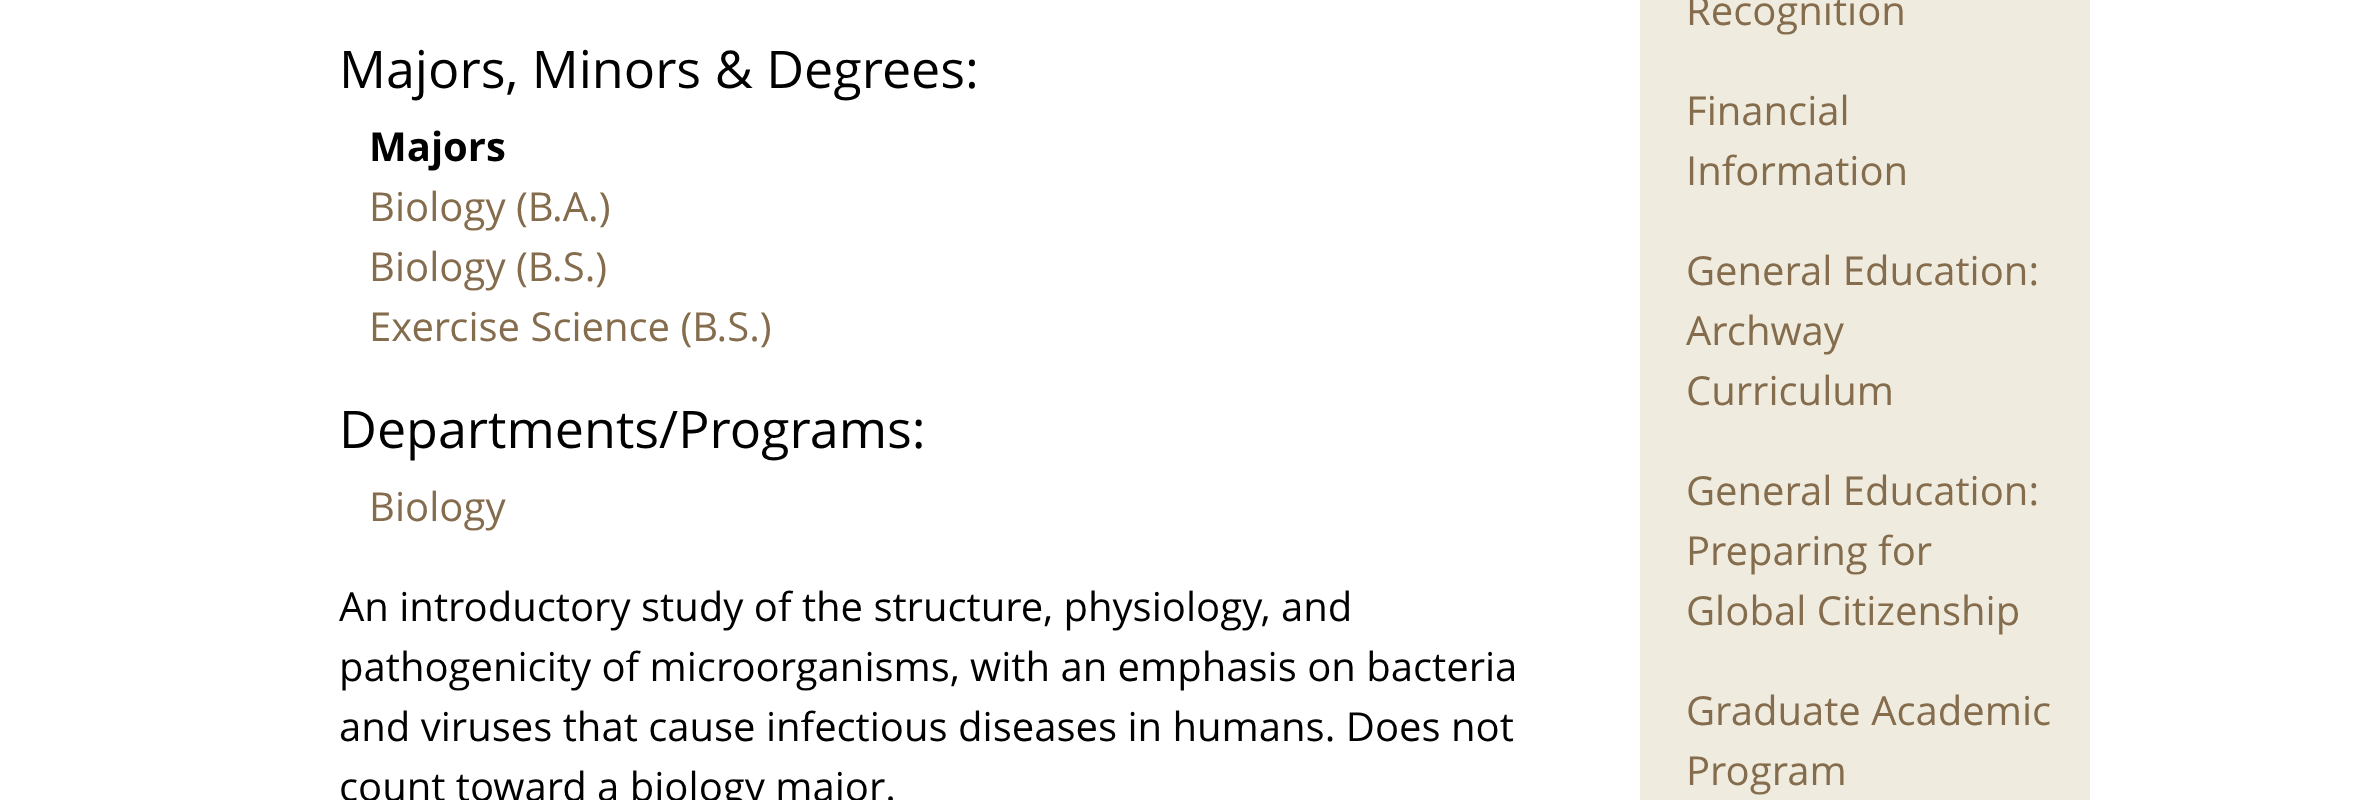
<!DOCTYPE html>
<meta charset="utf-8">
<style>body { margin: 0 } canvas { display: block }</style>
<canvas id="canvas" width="2376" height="800"></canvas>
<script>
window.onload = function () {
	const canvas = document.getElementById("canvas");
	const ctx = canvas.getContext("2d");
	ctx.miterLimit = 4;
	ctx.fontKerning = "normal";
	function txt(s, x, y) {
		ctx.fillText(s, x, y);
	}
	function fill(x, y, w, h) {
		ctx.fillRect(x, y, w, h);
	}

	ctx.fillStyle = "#FFFFFF";
	fill(0, 0, 2376, 800);
	ctx.fillStyle = "#EFECDF";
	fill(1640, 0, 450, 800);
	ctx.font = "52px Open Sans";
	ctx.fillStyle = "#000000";
	txt("Majors, Minors & Degrees:", 339, 88);
	ctx.font = "bold 40px Open Sans";
	txt("Majors", 369, 161);
	ctx.font = "40px Open Sans";
	ctx.fillStyle = "#846C4D";
	txt("Biology (B.A.)", 369, 221);
	txt("Biology (B.S.)", 369, 281);
	txt("Exercise Science (B.S.)", 369, 341);
	ctx.font = "52px Open Sans";
	ctx.fillStyle = "#000000";
	txt("Departments/Programs:", 339, 448);
	ctx.font = "40px Open Sans";
	ctx.fillStyle = "#846C4D";
	txt("Biology", 369, 521);
	ctx.fillStyle = "#000000";
	txt("An introductory study of the structure, physiology, and", 339, 621);
	txt("pathogenicity of microorganisms, with an emphasis on bacteria", 339, 681);
	txt("and viruses that cause infectious diseases in humans. Does not", 339, 741);
	txt("count toward a biology major.", 339, 801);
	ctx.fillStyle = "#846C4D";
	txt("Recognition", 1686, 25);
	txt("Financial", 1686, 125);
	txt("Information", 1686, 185);
	txt("General Education:", 1686, 285);
	txt("Archway", 1686, 345);
	txt("Curriculum", 1686, 405);
	txt("General Education:", 1686, 505);
	txt("Preparing for", 1686, 565);
	txt("Global Citizenship", 1686, 625);
	txt("Graduate Academic", 1686, 725);
	txt("Program", 1686, 785);
};
</script>
